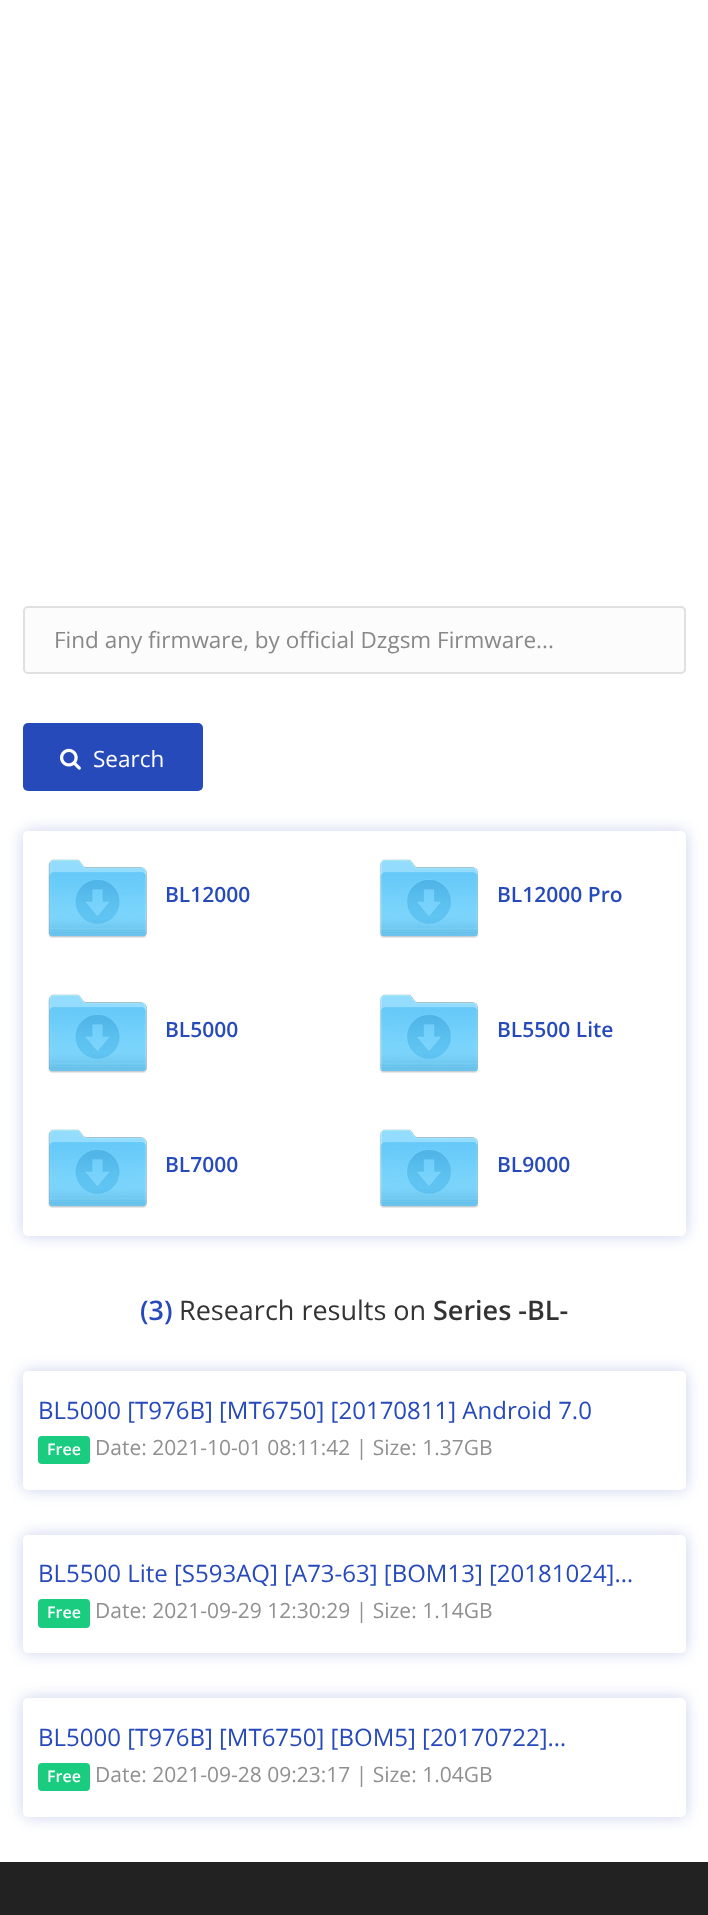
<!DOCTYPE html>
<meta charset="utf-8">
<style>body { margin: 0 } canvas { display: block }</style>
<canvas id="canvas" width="708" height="1915"></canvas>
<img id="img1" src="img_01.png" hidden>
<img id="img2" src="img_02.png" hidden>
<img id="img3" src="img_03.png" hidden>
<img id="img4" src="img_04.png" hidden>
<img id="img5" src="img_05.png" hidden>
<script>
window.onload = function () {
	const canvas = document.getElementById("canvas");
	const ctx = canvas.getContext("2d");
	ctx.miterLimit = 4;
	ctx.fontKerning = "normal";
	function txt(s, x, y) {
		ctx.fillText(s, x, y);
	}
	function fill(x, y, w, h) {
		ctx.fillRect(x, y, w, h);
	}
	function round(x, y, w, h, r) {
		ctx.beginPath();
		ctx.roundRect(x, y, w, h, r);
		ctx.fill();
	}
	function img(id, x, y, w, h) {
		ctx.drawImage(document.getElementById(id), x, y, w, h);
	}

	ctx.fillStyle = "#FFFFFF";
	fill(0, 0, 708, 1915);
	ctx.fillStyle = "#FCFCFC";
	ctx.beginPath();
	ctx.roundRect(24, 607, 661, 66, 4);
	ctx.fill();
	ctx.strokeStyle = "#E0E0E0";
	ctx.lineWidth = 2;
	ctx.stroke();
	ctx.fillStyle = "#274ABB";
	round(23, 723, 180, 68, 5);
	img("img1", 60, 748, 21, 22);
	ctx.fillStyle = "rgba(39, 74, 187, 0.25)";
	ctx.filter = "blur(7.5px)";
	ctx.beginPath();
	ctx.roundRect(23, 831, 663, 405, 5);
	ctx.fill();
	ctx.filter = "none";
	ctx.fillStyle = "#FFFFFF";
	round(23, 831, 663, 405, 5);
	img("img2", 48, 859, 99, 79);
	img("img3", 379, 859, 100, 79);
	img("img2", 48, 994, 99, 79);
	img("img3", 379, 994, 100, 79);
	img("img4", 48, 1129, 99, 79);
	img("img5", 379, 1129, 100, 79);
	ctx.fillStyle = "rgba(39, 74, 187, 0.25)";
	ctx.filter = "blur(7.5px)";
	ctx.beginPath();
	ctx.roundRect(23, 1371, 663, 119, 5);
	ctx.fill();
	ctx.filter = "none";
	ctx.fillStyle = "#FFFFFF";
	round(23, 1371, 663, 119, 5);
	ctx.fillStyle = "#19CC80";
	round(38, 1436, 52, 28, 4);
	ctx.fillStyle = "rgba(39, 74, 187, 0.25)";
	ctx.filter = "blur(7.5px)";
	ctx.beginPath();
	ctx.roundRect(23, 1535, 663, 118, 5);
	ctx.fill();
	ctx.filter = "none";
	ctx.fillStyle = "#FFFFFF";
	round(23, 1535, 663, 118, 5);
	ctx.fillStyle = "#19CC80";
	round(38, 1599, 52, 29, 4);
	ctx.fillStyle = "rgba(39, 74, 187, 0.25)";
	ctx.filter = "blur(7.5px)";
	ctx.beginPath();
	ctx.roundRect(23, 1698, 663, 119, 5);
	ctx.fill();
	ctx.filter = "none";
	ctx.fillStyle = "#FFFFFF";
	round(23, 1698, 663, 119, 5);
	ctx.fillStyle = "#19CC80";
	round(38, 1763, 52, 28, 4);
	ctx.fillStyle = "#222222";
	fill(0, 1862, 708, 53);
	ctx.font = "22.5px Open Sans";
	ctx.fillStyle = "#888888";
	txt("Find any firmware, by official Dzgsm Firmware...", 54, 648);
	ctx.fillStyle = "#FFFFFF";
	txt("Search", 93, 767);
	ctx.font = "600 21px Open Sans";
	ctx.fillStyle = "#274ABB";
	txt("BL12000", 165, 902);
	txt("BL12000 Pro", 497, 902);
	txt("BL5000", 165, 1037);
	txt("BL5500 Lite", 497, 1037);
	txt("BL7000", 165, 1172);
	txt("BL9000", 497, 1172);
	ctx.font = "600 27px Open Sans";
	txt("(3)", 140, 1320);
	ctx.font = "27px Open Sans";
	ctx.fillStyle = "#333333";
	txt("Research results on", 179, 1320);
	ctx.font = "600 27px Open Sans";
	txt("Series -BL-", 433, 1320);
	ctx.font = "24px Open Sans";
	ctx.fillStyle = "#274ABB";
	txt("BL5000 [T976B] [MT6750] [20170811] Android 7.0", 38, 1419);
	ctx.font = "600 16px Open Sans";
	ctx.fillStyle = "#FFFFFF";
	txt("Free", 47, 1455);
	ctx.font = "21px Open Sans";
	ctx.fillStyle = "#909090";
	txt("Date: 2021-10-01 08:11:42 | Size: 1.37GB", 95, 1455);
	ctx.font = "24px Open Sans";
	ctx.fillStyle = "#274ABB";
	txt("BL5500 Lite [S593AQ] [A73-63] [BOM13] [20181024]…", 38, 1582);
	ctx.font = "600 16px Open Sans";
	ctx.fillStyle = "#FFFFFF";
	txt("Free", 47, 1618);
	ctx.font = "21px Open Sans";
	ctx.fillStyle = "#909090";
	txt("Date: 2021-09-29 12:30:29 | Size: 1.14GB", 95, 1618);
	ctx.font = "24px Open Sans";
	ctx.fillStyle = "#274ABB";
	txt("BL5000 [T976B] [MT6750] [BOM5] [20170722]…", 38, 1746);
	ctx.font = "600 16px Open Sans";
	ctx.fillStyle = "#FFFFFF";
	txt("Free", 47, 1782);
	ctx.font = "21px Open Sans";
	ctx.fillStyle = "#909090";
	txt("Date: 2021-09-28 09:23:17 | Size: 1.04GB", 95, 1782);
};
</script>
